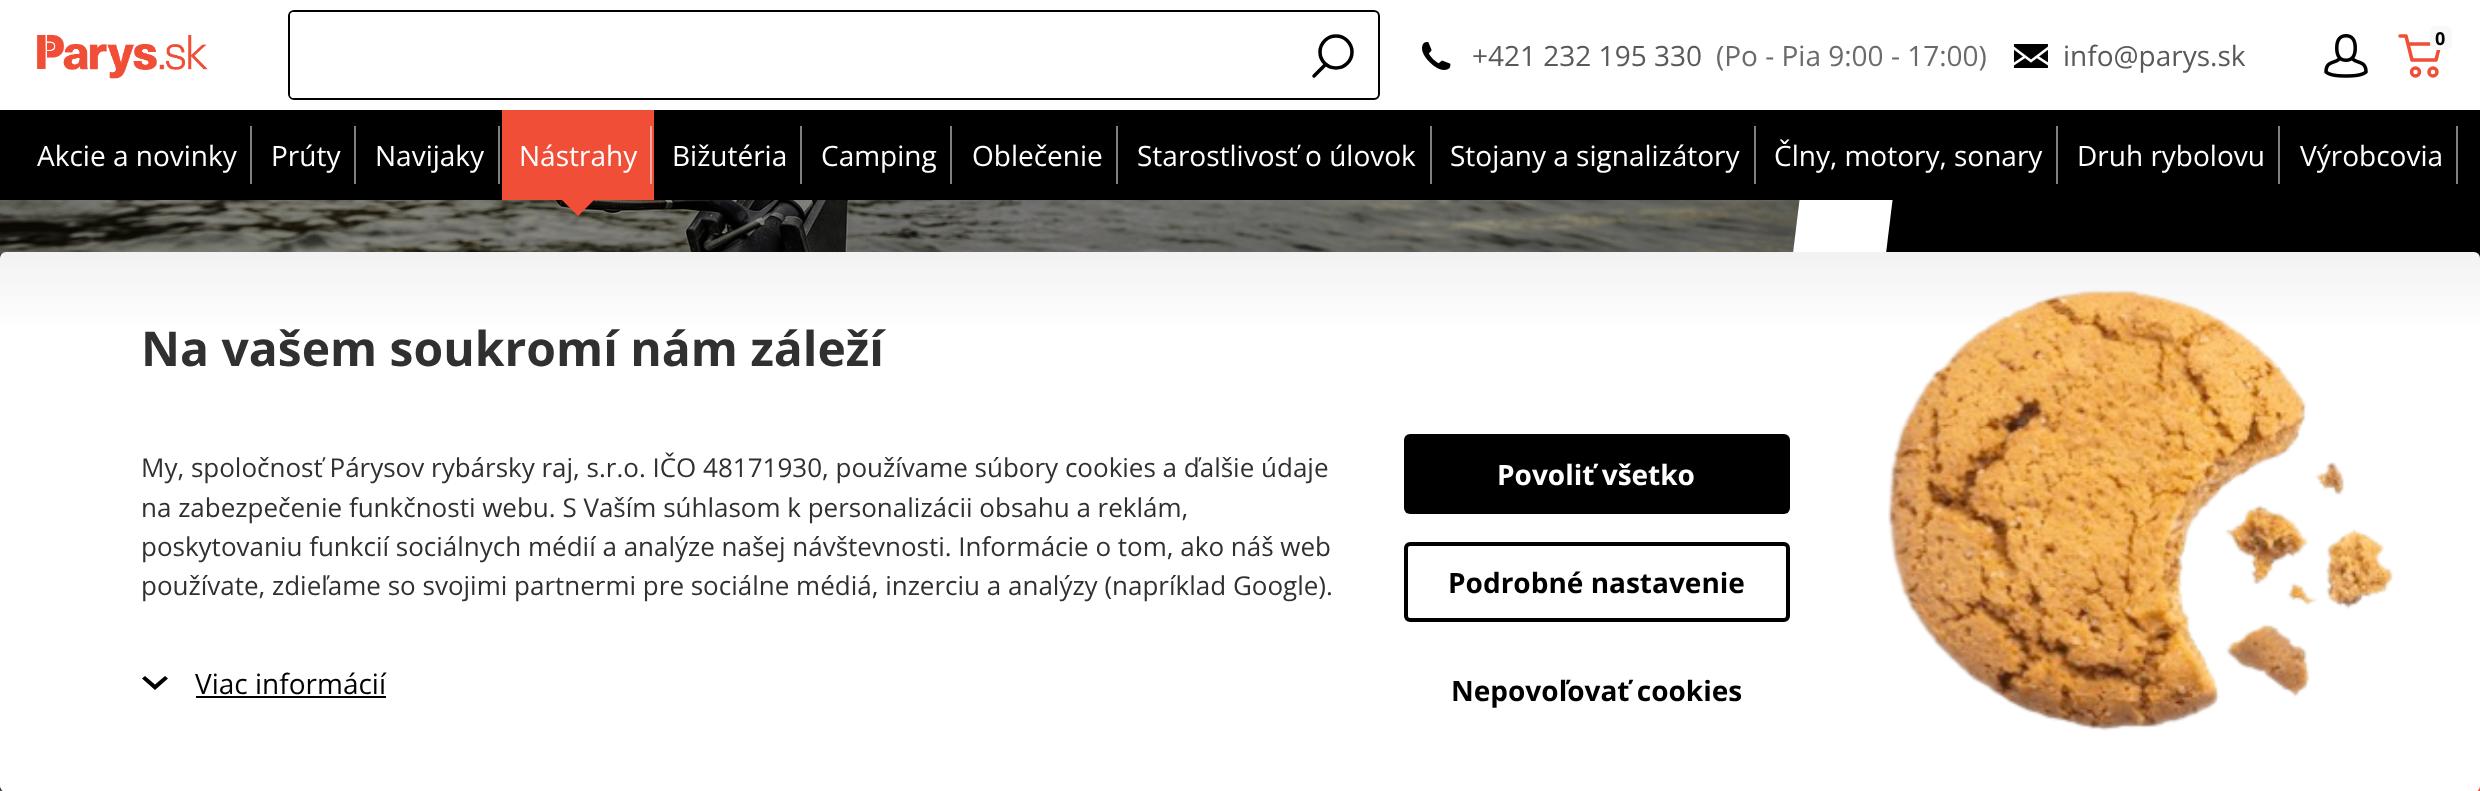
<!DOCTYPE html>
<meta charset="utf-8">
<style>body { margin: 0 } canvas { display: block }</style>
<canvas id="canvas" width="2480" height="791"></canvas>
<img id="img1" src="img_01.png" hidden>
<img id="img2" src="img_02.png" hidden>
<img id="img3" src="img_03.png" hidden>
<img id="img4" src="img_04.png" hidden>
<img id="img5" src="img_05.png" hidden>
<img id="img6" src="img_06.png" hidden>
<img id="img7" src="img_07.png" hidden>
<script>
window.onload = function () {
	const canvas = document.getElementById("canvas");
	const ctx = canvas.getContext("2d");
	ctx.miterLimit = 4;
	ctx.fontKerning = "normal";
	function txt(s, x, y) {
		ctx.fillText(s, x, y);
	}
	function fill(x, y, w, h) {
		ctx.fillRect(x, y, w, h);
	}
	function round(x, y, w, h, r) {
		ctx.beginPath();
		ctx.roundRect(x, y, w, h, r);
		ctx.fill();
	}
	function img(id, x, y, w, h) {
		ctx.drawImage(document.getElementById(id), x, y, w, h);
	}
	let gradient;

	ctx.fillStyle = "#FFFFFF";
	fill(0, 0, 2480, 791);
	img("img1", 0, 200, 1800, 58);
	ctx.fillStyle = "#000000";
	ctx.beginPath();
	ctx.moveTo(2480, -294);
	ctx.lineTo(1953, -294);
	ctx.lineTo(1860, 466);
	ctx.lineTo(2480, 466);
	ctx.closePath();
	ctx.fill();
	img("img2", 0, 786, 3, 5);
	ctx.fillStyle = "#F04E37";
	ctx.beginPath();
	ctx.moveTo(2480, 576);
	ctx.lineTo(713, 576);
	ctx.lineTo(620, 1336);
	ctx.lineTo(2480, 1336);
	ctx.closePath();
	ctx.fill();
	ctx.fillStyle = "#FFFFFF";
	fill(1903, 0, 577, 110);
	img("img3", 36, 34, 172, 45);
	ctx.beginPath();
	ctx.roundRect(289, 11, 1090, 88, 5);
	ctx.strokeStyle = "#000000";
	ctx.lineWidth = 2;
	ctx.stroke();
	ctx.beginPath();
	ctx.roundRect(290, 12, 1014, 86, [4, 0, 0, 4]);
	ctx.fill();
	ctx.beginPath();
	ctx.arc(1336, 52, 16, 0, Math.PI * 2);
	ctx.lineWidth = 3.5;
	ctx.stroke();
	ctx.beginPath();
	ctx.moveTo(1314, 76);
	ctx.lineTo(1325, 65);
	ctx.lineCap = "round";
	ctx.stroke();
	img("img4", 1422, 42, 29, 28);
	img("img5", 2014, 44, 34, 24);
	img("img6", 2324, 34, 44, 44);
	ctx.beginPath();
	ctx.moveTo(2408, 44);
	ctx.lineTo(2440, 44);
	ctx.lineTo(2436, 60);
	ctx.lineTo(2412, 60);
	ctx.lineTo(2406, 36);
	ctx.lineTo(2400, 36);
	ctx.strokeStyle = "#F04E37";
	ctx.lineJoin = "round";
	ctx.stroke();
	ctx.beginPath();
	ctx.arc(2415.5, 72, 4, 0, Math.PI * 2);
	ctx.stroke();
	ctx.beginPath();
	ctx.arc(2433, 72, 4, 0, Math.PI * 2);
	ctx.stroke();
	ctx.fillStyle = "#F8F8F8";
	round(2430, 26, 22, 24, 6);
	ctx.fillStyle = "#000000";
	fill(0, 110, 1904, 90);
	ctx.fillStyle = "#808080";
	fill(250, 126, 2, 58);
	fill(354, 126, 2, 58);
	fill(498, 126, 2, 58);
	ctx.fillStyle = "#F04E37";
	fill(502, 110, 152, 90);
	ctx.fillStyle = "#F8A79B";
	fill(650, 126, 2, 58);
	ctx.fillStyle = "#F04E37";
	ctx.beginPath();
	ctx.moveTo(562, 200);
	ctx.lineTo(594, 200);
	ctx.lineTo(578, 216);
	ctx.closePath();
	ctx.fill();
	ctx.fillStyle = "#808080";
	fill(800, 126, 2, 58);
	fill(950, 126, 2, 58);
	fill(1116, 126, 2, 58);
	fill(1430, 126, 2, 58);
	fill(1754, 126, 2, 58);
	fill(2056, 126, 2, 58);
	fill(2278, 126, 2, 58);
	fill(2456, 126, 2, 58);
	gradient = ctx.createLinearGradient(1240, 252, 1240, 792);
	gradient.addColorStop(0, "#F2F2F2");
	gradient.addColorStop(0.15, "#FFFFFF");
	ctx.fillStyle = gradient;
	round(0, 252, 2480, 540, 6);
	img("img7", 1888, 290, 505, 441);
	ctx.fillStyle = "#000000";
	round(1404, 434, 386, 80, 6);
	ctx.beginPath();
	ctx.roundRect(1406, 544, 382, 76, 4);
	ctx.strokeStyle = "#000000";
	ctx.lineWidth = 4;
	ctx.lineJoin = "miter";
	ctx.stroke();
	ctx.beginPath();
	ctx.moveTo(155, 690);
	ctx.lineTo(142, 678.5);
	ctx.lineTo(145, 676);
	ctx.lineTo(155, 684.5);
	ctx.lineTo(165, 676);
	ctx.lineTo(168, 678.5);
	ctx.closePath();
	ctx.fill();
	fill(196, 696, 190, 2);
	ctx.font = "28px Open Sans";
	ctx.fillStyle = "#595959";
	txt("+421 232 195 330", 1472, 66);
	ctx.fillStyle = "#6A6A6A";
	txt("(Po - Pia 9:00 - 17:00)", 1716, 66);
	ctx.fillStyle = "#595959";
	txt("info@parys.sk", 2063, 66);
	ctx.font = "bold 18px Open Sans";
	ctx.fillStyle = "#000000";
	txt("0", 2435, 45);
	ctx.font = "28px Open Sans";
	ctx.fillStyle = "#FFFFFF";
	txt("Akcie a novinky", 37, 166);
	txt("Prúty", 271, 166);
	txt("Navijaky", 375, 166);
	txt("Nástrahy", 519, 166);
	txt("Bižutéria", 672, 166);
	txt("Camping", 821, 166);
	txt("Oblečenie", 972, 166);
	txt("Starostlivosť o úlovok", 1137, 166);
	txt("Stojany a signalizátory", 1450, 166);
	txt("Člny, motory, sonary", 1774, 166);
	txt("Druh rybolovu", 2077, 166);
	txt("Výrobcovia", 2300, 166);
	ctx.font = "bold 48px Open Sans";
	ctx.fillStyle = "#303030";
	txt("Na vašem soukromí nám záleží", 141, 366);
	ctx.font = "26px Open Sans";
	txt("My, spoločnosť Párysov rybársky raj, s.r.o. IČO 48171930, používame súbory cookies a ďalšie údaje", 141, 477);
	txt("na zabezpečenie funkčnosti webu. S Vaším súhlasom k personalizácii obsahu a reklám,", 141, 517);
	txt("poskytovaniu funkcií sociálnych médií a analýze našej návštevnosti. Informácie o tom, ako náš web", 141, 556);
	txt("používate, zdieľame so svojimi partnermi pre sociálne médiá, inzerciu a analýzy (napríklad Google).", 141, 595);
	ctx.font = "bold 28px Open Sans";
	ctx.fillStyle = "#FFFFFF";
	txt("Povoliť všetko", 1497, 485);
	ctx.fillStyle = "#000000";
	txt("Podrobné nastavenie", 1448, 593);
	txt("Nepovoľovať cookies", 1451, 701);
	ctx.font = "28px Open Sans";
	txt("Viac informácií", 195, 694);
};
</script>
